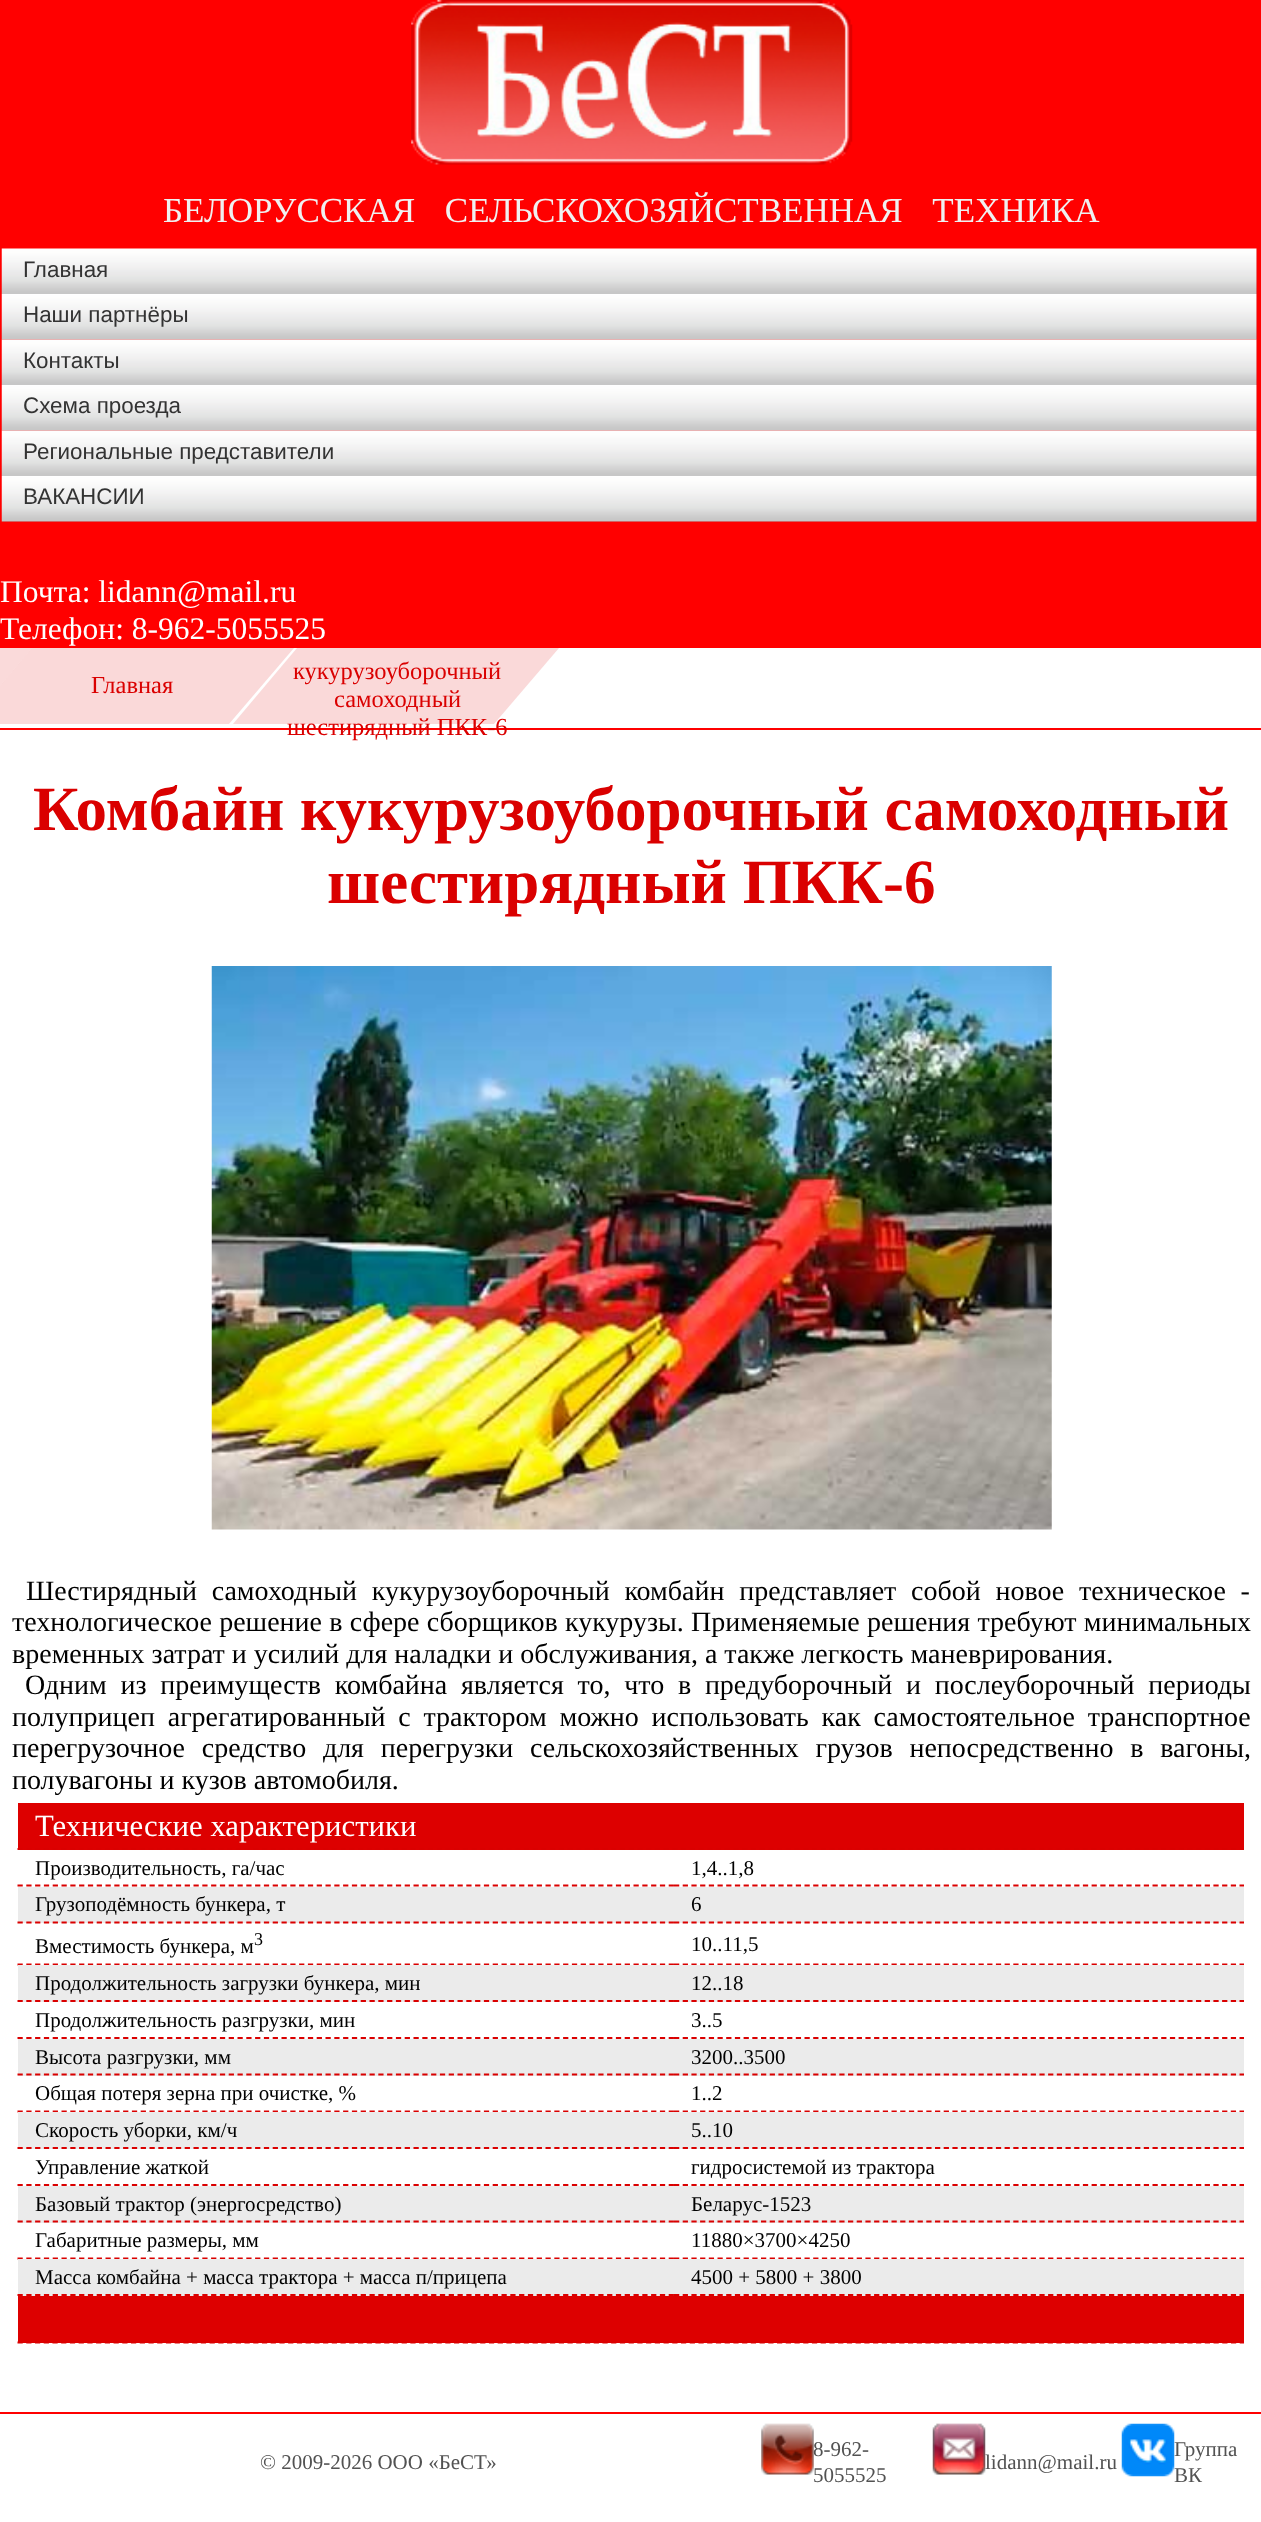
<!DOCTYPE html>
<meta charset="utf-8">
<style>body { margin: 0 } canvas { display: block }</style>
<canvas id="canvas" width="1261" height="2522"></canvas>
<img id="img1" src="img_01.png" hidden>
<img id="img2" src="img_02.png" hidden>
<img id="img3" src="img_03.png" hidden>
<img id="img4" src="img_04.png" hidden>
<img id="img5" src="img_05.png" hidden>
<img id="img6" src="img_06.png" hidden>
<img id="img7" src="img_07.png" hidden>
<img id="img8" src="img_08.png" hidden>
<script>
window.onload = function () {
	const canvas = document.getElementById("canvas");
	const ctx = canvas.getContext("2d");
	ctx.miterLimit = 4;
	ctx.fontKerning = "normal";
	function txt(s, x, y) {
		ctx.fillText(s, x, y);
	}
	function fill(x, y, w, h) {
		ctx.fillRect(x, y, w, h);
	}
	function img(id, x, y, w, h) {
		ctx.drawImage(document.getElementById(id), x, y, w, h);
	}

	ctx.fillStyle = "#FFFFFF";
	fill(0, 0, 1261, 2522);
	ctx.fillStyle = "#FF0000";
	fill(0, 0, 1261, 648);
	img("img1", 411, 0, 442, 165);
	ctx.fillStyle = "#DA0000";
	fill(1256, 249, 1, 45);
	img("img2", 1, 248, 1256, 46);
	fill(2, 294, 1255, 46);
	img("img3", 1, 294, 1256, 46);
	fill(1256, 340, 1, 45);
	img("img4", 1, 339, 1256, 46);
	fill(2, 385, 1255, 46);
	img("img3", 1, 385, 1256, 46);
	fill(1256, 431, 1, 45);
	img("img4", 1, 430, 1256, 46);
	fill(2, 476, 1255, 46);
	img("img3", 1, 476, 1256, 46);
	ctx.fillStyle = "#FF0000";
	fill(0, 728, 1261, 2);
	ctx.fillStyle = "#FAD9D9";
	ctx.beginPath();
	ctx.moveTo(32, 648);
	ctx.lineTo(294, 648);
	ctx.lineTo(229, 724);
	ctx.lineTo(-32, 724);
	ctx.closePath();
	ctx.fill();
	ctx.fillStyle = "rgba(227, 57, 57, 0.19)";
	ctx.beginPath();
	ctx.moveTo(-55, 648);
	ctx.lineTo(32, 648);
	ctx.lineTo(-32, 724);
	ctx.lineTo(-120, 724);
	ctx.closePath();
	ctx.fill();
	ctx.fillStyle = "#FAD9D9";
	ctx.beginPath();
	ctx.moveTo(297, 648);
	ctx.lineTo(559, 648);
	ctx.lineTo(494, 724);
	ctx.lineTo(233, 724);
	ctx.closePath();
	ctx.fill();
	img("img5", 211, 966, 841, 564);
	ctx.fillStyle = "#DD0000";
	fill(18, 1803, 1226, 47);
	ctx.beginPath();
	ctx.moveTo(17.5, 1849);
	ctx.lineTo(1244, 1849);
	ctx.strokeStyle = "#DA0000";
	ctx.lineWidth = 1.8;
	ctx.setLineDash([5.25, 3.48]);
	ctx.stroke();
	ctx.beginPath();
	ctx.moveTo(17.5, 1885.5);
	ctx.lineTo(674, 1885.5);
	ctx.setLineDash([5.25, 3.55]);
	ctx.stroke();
	ctx.beginPath();
	ctx.moveTo(674, 1885.5);
	ctx.lineTo(1244, 1885.5);
	ctx.setLineDash([5.25, 3.45]);
	ctx.stroke();
	ctx.fillStyle = "#EBEBEB";
	fill(18, 1887, 1226, 36);
	ctx.beginPath();
	ctx.moveTo(17.5, 1922.5);
	ctx.lineTo(674, 1922.5);
	ctx.setLineDash([5.25, 3.55]);
	ctx.stroke();
	ctx.beginPath();
	ctx.moveTo(674, 1922.5);
	ctx.lineTo(1244, 1922.5);
	ctx.setLineDash([5.25, 3.45]);
	ctx.stroke();
	ctx.beginPath();
	ctx.moveTo(17.5, 1964.5);
	ctx.lineTo(674, 1964.5);
	ctx.setLineDash([5.25, 3.55]);
	ctx.stroke();
	ctx.beginPath();
	ctx.moveTo(674, 1964.5);
	ctx.lineTo(1244, 1964.5);
	ctx.setLineDash([5.25, 3.45]);
	ctx.stroke();
	fill(18, 1965, 1226, 37);
	ctx.beginPath();
	ctx.moveTo(17.5, 2001);
	ctx.lineTo(674, 2001);
	ctx.setLineDash([5.25, 3.55]);
	ctx.stroke();
	ctx.beginPath();
	ctx.moveTo(674, 2001);
	ctx.lineTo(1244, 2001);
	ctx.setLineDash([5.25, 3.45]);
	ctx.stroke();
	ctx.beginPath();
	ctx.moveTo(17.5, 2038);
	ctx.lineTo(674, 2038);
	ctx.setLineDash([5.25, 3.55]);
	ctx.stroke();
	ctx.beginPath();
	ctx.moveTo(674, 2038);
	ctx.lineTo(1244, 2038);
	ctx.setLineDash([5.25, 3.45]);
	ctx.stroke();
	fill(18, 2039, 1226, 37);
	ctx.beginPath();
	ctx.moveTo(17.5, 2074.5);
	ctx.lineTo(674, 2074.5);
	ctx.setLineDash([5.25, 3.55]);
	ctx.stroke();
	ctx.beginPath();
	ctx.moveTo(674, 2074.5);
	ctx.lineTo(1244, 2074.5);
	ctx.setLineDash([5.25, 3.45]);
	ctx.stroke();
	ctx.beginPath();
	ctx.moveTo(17.5, 2111.5);
	ctx.lineTo(674, 2111.5);
	ctx.setLineDash([5.25, 3.55]);
	ctx.stroke();
	ctx.beginPath();
	ctx.moveTo(674, 2111.5);
	ctx.lineTo(1244, 2111.5);
	ctx.setLineDash([5.25, 3.45]);
	ctx.stroke();
	fill(18, 2112, 1226, 37);
	ctx.beginPath();
	ctx.moveTo(17.5, 2148);
	ctx.lineTo(674, 2148);
	ctx.setLineDash([5.25, 3.55]);
	ctx.stroke();
	ctx.beginPath();
	ctx.moveTo(674, 2148);
	ctx.lineTo(1244, 2148);
	ctx.setLineDash([5.25, 3.45]);
	ctx.stroke();
	ctx.beginPath();
	ctx.moveTo(17.5, 2185);
	ctx.lineTo(674, 2185);
	ctx.setLineDash([5.25, 3.55]);
	ctx.stroke();
	ctx.beginPath();
	ctx.moveTo(674, 2185);
	ctx.lineTo(1244, 2185);
	ctx.setLineDash([5.25, 3.45]);
	ctx.stroke();
	fill(18, 2186, 1226, 37);
	ctx.beginPath();
	ctx.moveTo(17.5, 2221.5);
	ctx.lineTo(674, 2221.5);
	ctx.setLineDash([5.25, 3.55]);
	ctx.stroke();
	ctx.beginPath();
	ctx.moveTo(674, 2221.5);
	ctx.lineTo(1244, 2221.5);
	ctx.setLineDash([5.25, 3.45]);
	ctx.stroke();
	ctx.beginPath();
	ctx.moveTo(17.5, 2258.5);
	ctx.lineTo(674, 2258.5);
	ctx.setLineDash([5.25, 3.55]);
	ctx.stroke();
	ctx.beginPath();
	ctx.moveTo(674, 2258.5);
	ctx.lineTo(1244, 2258.5);
	ctx.setLineDash([5.25, 3.45]);
	ctx.stroke();
	fill(18, 2259, 1226, 37);
	ctx.beginPath();
	ctx.moveTo(17.5, 2295);
	ctx.lineTo(674, 2295);
	ctx.setLineDash([5.25, 3.55]);
	ctx.stroke();
	ctx.beginPath();
	ctx.moveTo(674, 2295);
	ctx.lineTo(1244, 2295);
	ctx.setLineDash([5.25, 3.45]);
	ctx.stroke();
	ctx.fillStyle = "#DD0000";
	fill(18, 2296, 1226, 47);
	ctx.beginPath();
	ctx.moveTo(17.5, 2342.5);
	ctx.lineTo(1244, 2342.5);
	ctx.setLineDash([5.25, 3.48]);
	ctx.stroke();
	ctx.fillStyle = "#FF0000";
	fill(0, 2412, 1261, 2);
	img("img6", 761, 2423, 53, 52);
	img("img7", 932, 2423, 54, 52);
	img("img8", 1121, 2423, 54, 54);
	ctx.wordSpacing = "21px";
	ctx.font = "35px Liberation Serif";
	ctx.fillStyle = "#F0F0F0";
	txt("БЕЛОРУССКАЯ СЕЛЬСКОХОЗЯЙСТВЕННАЯ ТЕХНИКА", 163, 222);
	ctx.wordSpacing = "0px";
	ctx.font = "22.4px Liberation Sans";
	ctx.fillStyle = "#333333";
	txt("Главная", 23, 277);
	txt("Наши партнёры", 23, 322);
	txt("Контакты", 23, 368);
	txt("Схема проезда", 23, 413);
	txt("Региональные представители", 23, 459);
	txt("ВАКАНСИИ", 23, 504);
	ctx.font = "31.5px Liberation Serif";
	ctx.fillStyle = "#FFFFFF";
	txt("Почта: lidann@mail.ru", 0, 602);
	txt("Телефон: 8-962-5055525", 0, 639);
	ctx.font = "24.5px Liberation Serif";
	ctx.fillStyle = "#DA0000";
	txt("Главная", 91, 693);
	txt("кукурузоуборочный", 293, 679);
	txt("самоходный", 334, 707);
	txt("шестирядный ПКК-6", 287, 735);
	ctx.font = "bold 63px Liberation Serif";
	txt("Комбайн кукурузоуборочный самоходный", 33, 830);
	txt("шестирядный ПКК-6", 327, 903);
	ctx.wordSpacing = "7.75px";
	ctx.font = "28px Liberation Serif";
	ctx.fillStyle = "#000000";
	txt("Шестирядный самоходный кукурузоуборочный комбайн представляет собой новое техническое -", 26, 1600);
	ctx.wordSpacing = "0.25px";
	txt("технологическое решение в сфере сборщиков кукурузы. Применяемые решения требуют минимальных", 12, 1631);
	ctx.wordSpacing = "0px";
	txt("временных затрат и усилий для наладки и обслуживания, а также легкость маневрирования.", 12, 1663);
	ctx.wordSpacing = "6.75px";
	txt("Одним из преимуществ комбайна является то, что в предуборочный и послеуборочный периоды", 25, 1694);
	ctx.wordSpacing = "5.75px";
	txt("полуприцеп агрегатированный с трактором можно использовать как самостоятельное транспортное", 12, 1726);
	ctx.wordSpacing = "9.75px";
	txt("перегрузочное средство для перегрузки сельскохозяйственных грузов непосредственно в вагоны,", 12, 1757);
	ctx.wordSpacing = "0px";
	txt("полувагоны и кузов автомобиля.", 12, 1789);
	ctx.font = "30.75px Liberation Serif";
	ctx.fillStyle = "#FFFFFF";
	txt("Технические характеристики", 35, 1836);
	ctx.font = "21px Liberation Serif";
	ctx.fillStyle = "#000000";
	txt("Производительность, га/час", 35, 1875);
	txt("1,4..1,8", 691, 1875);
	txt("Грузоподёмность бункера, т", 35, 1911);
	txt("6", 691, 1911);
	txt("Вместимость бункера, м", 35, 1953);
	ctx.font = "18px Liberation Serif";
	txt("3", 254, 1945);
	ctx.font = "21px Liberation Serif";
	txt("10..11,5", 691, 1951);
	txt("Продолжительность загрузки бункера, мин", 35, 1990);
	txt("12..18", 691, 1990);
	txt("Продолжительность разгрузки, мин", 35, 2027);
	txt("3..5", 691, 2027);
	txt("Высота разгрузки, мм", 35, 2064);
	txt("3200..3500", 691, 2064);
	txt("Общая потеря зерна при очистке, %", 35, 2100);
	txt("1..2", 691, 2100);
	txt("Скорость уборки, км/ч", 35, 2137);
	txt("5..10", 691, 2137);
	txt("Управление жаткой", 35, 2174);
	txt("гидросистемой из трактора", 691, 2174);
	txt("Базовый трактор (энергосредство)", 35, 2211);
	txt("Беларус-1523", 691, 2211);
	txt("Габаритные размеры, мм", 35, 2247);
	txt("11880×3700×4250", 691, 2247);
	txt("Масса комбайна + масса трактора + масса п/прицепа", 35, 2284);
	txt("4500 + 5800 + 3800", 691, 2284);
	ctx.fillStyle = "#525252";
	txt("© 2009-2026 ООО «БеСТ»", 260, 2469);
	txt("8-962-", 813, 2456);
	txt("5055525", 813, 2482);
	txt("lidann@mail.ru", 985, 2469);
	txt("Группа", 1174, 2456);
	txt("ВК", 1174, 2482);
};
</script>
